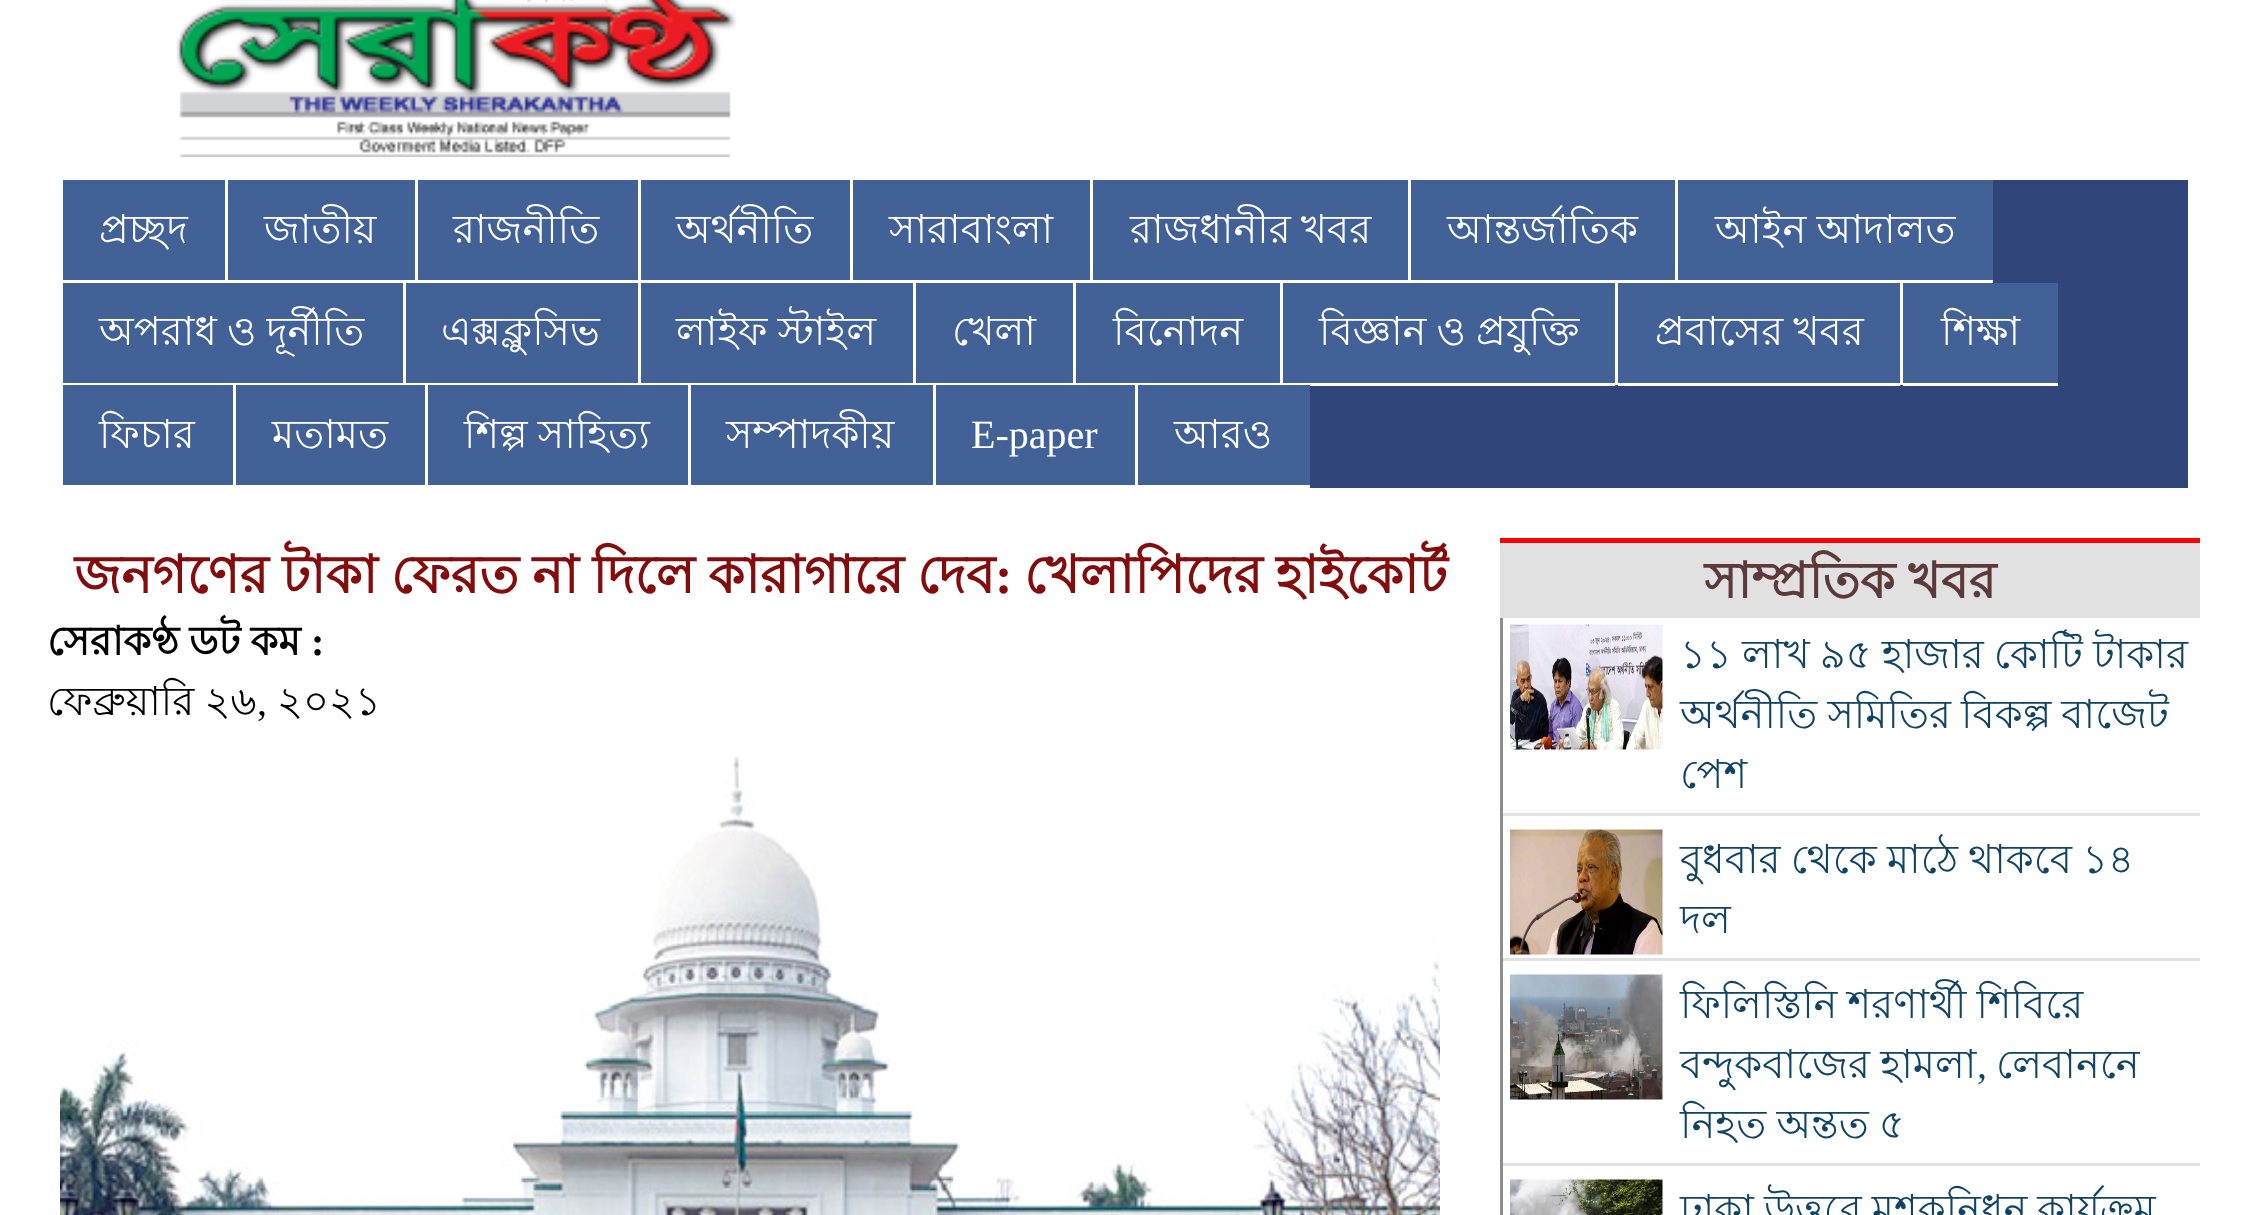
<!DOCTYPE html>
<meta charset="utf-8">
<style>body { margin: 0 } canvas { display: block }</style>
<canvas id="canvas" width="2246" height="1215"></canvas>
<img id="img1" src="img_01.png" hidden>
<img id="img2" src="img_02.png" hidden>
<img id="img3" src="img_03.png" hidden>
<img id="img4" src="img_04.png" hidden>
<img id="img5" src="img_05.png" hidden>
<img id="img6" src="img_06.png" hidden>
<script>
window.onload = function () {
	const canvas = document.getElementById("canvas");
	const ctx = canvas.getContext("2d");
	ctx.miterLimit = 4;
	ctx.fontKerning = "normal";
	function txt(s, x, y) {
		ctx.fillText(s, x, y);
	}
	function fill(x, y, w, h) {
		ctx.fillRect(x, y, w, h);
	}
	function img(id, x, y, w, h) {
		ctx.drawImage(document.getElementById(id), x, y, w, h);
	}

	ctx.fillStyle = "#FFFFFF";
	fill(0, 0, 2246, 1215);
	img("img1", 176, 0, 561, 157);
	ctx.fillStyle = "#30467A";
	fill(1310, 180, 878, 308);
	ctx.fillStyle = "#426196";
	fill(63, 180, 162, 100);
	fill(228, 180, 187, 100);
	fill(418, 180, 220, 100);
	fill(641, 180, 209, 100);
	fill(853, 180, 237, 100);
	fill(1093, 180, 315, 100);
	ctx.fillStyle = "#FFFFFF";
	fill(1310, 280, 98, 3);
	ctx.fillStyle = "#426196";
	fill(1411, 180, 264, 100);
	ctx.fillStyle = "#FFFFFF";
	fill(1408, 180, 3, 103);
	fill(1410, 280, 265, 3);
	ctx.fillStyle = "#426196";
	fill(1678, 180, 315, 100);
	ctx.fillStyle = "#FFFFFF";
	fill(1675, 180, 3, 103);
	fill(1678, 280, 315, 3);
	ctx.fillStyle = "#426196";
	fill(63, 283, 340, 100);
	fill(406, 283, 232, 100);
	fill(641, 283, 272, 100);
	fill(916, 283, 157, 100);
	fill(1076, 283, 204, 100);
	fill(1283, 283, 332, 100);
	ctx.fillStyle = "#FFFFFF";
	fill(1310, 383, 305, 3);
	ctx.fillStyle = "#426196";
	fill(1618, 283, 282, 100);
	ctx.fillStyle = "#FFFFFF";
	fill(1615, 283, 3, 102);
	fill(1618, 383, 282, 3);
	ctx.fillStyle = "#426196";
	fill(1903, 283, 155, 100);
	ctx.fillStyle = "#FFFFFF";
	fill(1900, 283, 3, 102);
	fill(1903, 383, 155, 3);
	ctx.fillStyle = "#426196";
	fill(63, 385, 170, 100);
	fill(236, 385, 189, 100);
	fill(428, 385, 260, 100);
	fill(691, 385, 242, 100);
	fill(936, 385, 199, 100);
	fill(1138, 385, 172, 100);
	img("img2", 60, 757, 1380, 458);
	ctx.fillStyle = "#E1E1E1";
	fill(1500, 543, 700, 75);
	ctx.fillStyle = "#FF0000";
	fill(1500, 538, 700, 5);
	ctx.fillStyle = "#908D8D";
	fill(1500, 618, 3, 597);
	ctx.fillStyle = "#E1E1E1";
	fill(1503, 813, 697, 3);
	img("img3", 1510, 624, 153, 126);
	fill(1503, 958, 697, 3);
	img("img4", 1510, 829, 153, 126);
	fill(1503, 1163, 697, 3);
	img("img5", 1510, 974, 153, 126);
	img("img6", 1510, 1179, 153, 36);
	ctx.font = "40px Lohit Bengali";
	ctx.fillStyle = "#FFFFFF";
	txt("প্রচ্ছদ", 99, 243);
	txt("জাতীয়", 264, 243);
	txt("রাজনীতি", 453, 243);
	txt("অর্থনীতি", 676, 243);
	txt("সারাবাংলা", 889, 243);
	ctx.wordSpacing = "-1px";
	txt("রাজধানীর খবর", 1130, 243);
	ctx.wordSpacing = "0px";
	txt("আন্তর্জাতিক", 1447, 243);
	ctx.wordSpacing = "-1px";
	txt("আইন আদালত", 1715, 243);
	txt("অপরাধ ও দূর্নীতি", 99, 345);
	ctx.wordSpacing = "0px";
	txt("এক্সক্লুসিভ", 441, 345);
	ctx.wordSpacing = "-1px";
	txt("লাইফ স্টাইল", 676, 345);
	ctx.wordSpacing = "0px";
	txt("খেলা", 952, 345);
	txt("বিনোদন", 1113, 345);
	ctx.wordSpacing = "-1px";
	txt("বিজ্ঞান ও প্রযুক্তি", 1319, 345);
	txt("প্রবাসের খবর", 1655, 345);
	ctx.wordSpacing = "0px";
	txt("শিক্ষা", 1941, 345);
	txt("ফিচার", 99, 448);
	txt("মতামত", 272, 448);
	ctx.wordSpacing = "-1px";
	txt("শিল্প সাহিত্য", 464, 448);
	ctx.wordSpacing = "0px";
	txt("সম্পাদকীয়", 726, 448);
	ctx.font = "40px Liberation Serif";
	txt("E-paper", 971, 448);
	ctx.font = "40px Lohit Bengali";
	txt("আরও", 1174, 448);
	ctx.wordSpacing = "-1.25px";
	ctx.font = "bold 52.5px Lohit Bengali";
	ctx.fillStyle = "#830C0C";
	txt("জনগণের টাকা ফেরত না দিলে কারাগারে দেব", 74, 593);
	ctx.wordSpacing = "0px";
	ctx.font = "bold 52.5px Liberation Serif";
	txt(":", 995, 593);
	ctx.wordSpacing = "-1.25px";
	ctx.font = "bold 52.5px Lohit Bengali";
	txt("খেলাপিদের হাইকোর্ট", 1024, 593);
	ctx.wordSpacing = "-1px";
	ctx.font = "bold 40px Lohit Bengali";
	ctx.fillStyle = "#000000";
	txt("সেরাকণ্ঠ ডট কম", 47, 655);
	ctx.wordSpacing = "0px";
	ctx.font = "bold 40px Liberation Serif";
	txt(":", 311, 655);
	ctx.wordSpacing = "-1px";
	ctx.font = "40px Lohit Bengali";
	txt("ফেব্রুয়ারি ২৬", 47, 715);
	ctx.wordSpacing = "0px";
	ctx.font = "40px Liberation Serif";
	txt(",", 257, 715);
	ctx.font = "40px Lohit Bengali";
	txt("২০২১", 277, 715);
	ctx.wordSpacing = "-1px";
	ctx.font = "bold 50px Lohit Bengali";
	ctx.fillStyle = "#5D3A3A";
	txt("সাম্প্রতিক খবর", 1704, 598);
	ctx.font = "40px Lohit Bengali";
	ctx.fillStyle = "#104465";
	txt("১১ লাখ ৯৫ হাজার কোটি টাকার", 1680, 668);
	txt("অর্থনীতি সমিতির বিকল্প বাজেট", 1680, 728);
	ctx.wordSpacing = "0px";
	txt("পেশ", 1680, 788);
	ctx.wordSpacing = "-1px";
	txt("বুধবার থেকে মাঠে থাকবে ১৪", 1680, 873);
	ctx.wordSpacing = "0px";
	txt("দল", 1680, 933);
	ctx.wordSpacing = "-1px";
	txt("ফিলিস্তিনি শরণার্থী শিবিরে", 1680, 1018);
	txt("বন্দুকবাজের হামলা", 1680, 1078);
	ctx.wordSpacing = "0px";
	ctx.font = "40px Liberation Serif";
	txt(",", 1977, 1078);
	ctx.font = "40px Lohit Bengali";
	txt("লেবাননে", 1996, 1078);
	ctx.wordSpacing = "-1px";
	txt("নিহত অন্তত ৫", 1680, 1138);
	txt("ঢাকা উত্তরে মশকনিধন কার্যক্রম", 1680, 1223);
};
</script>
